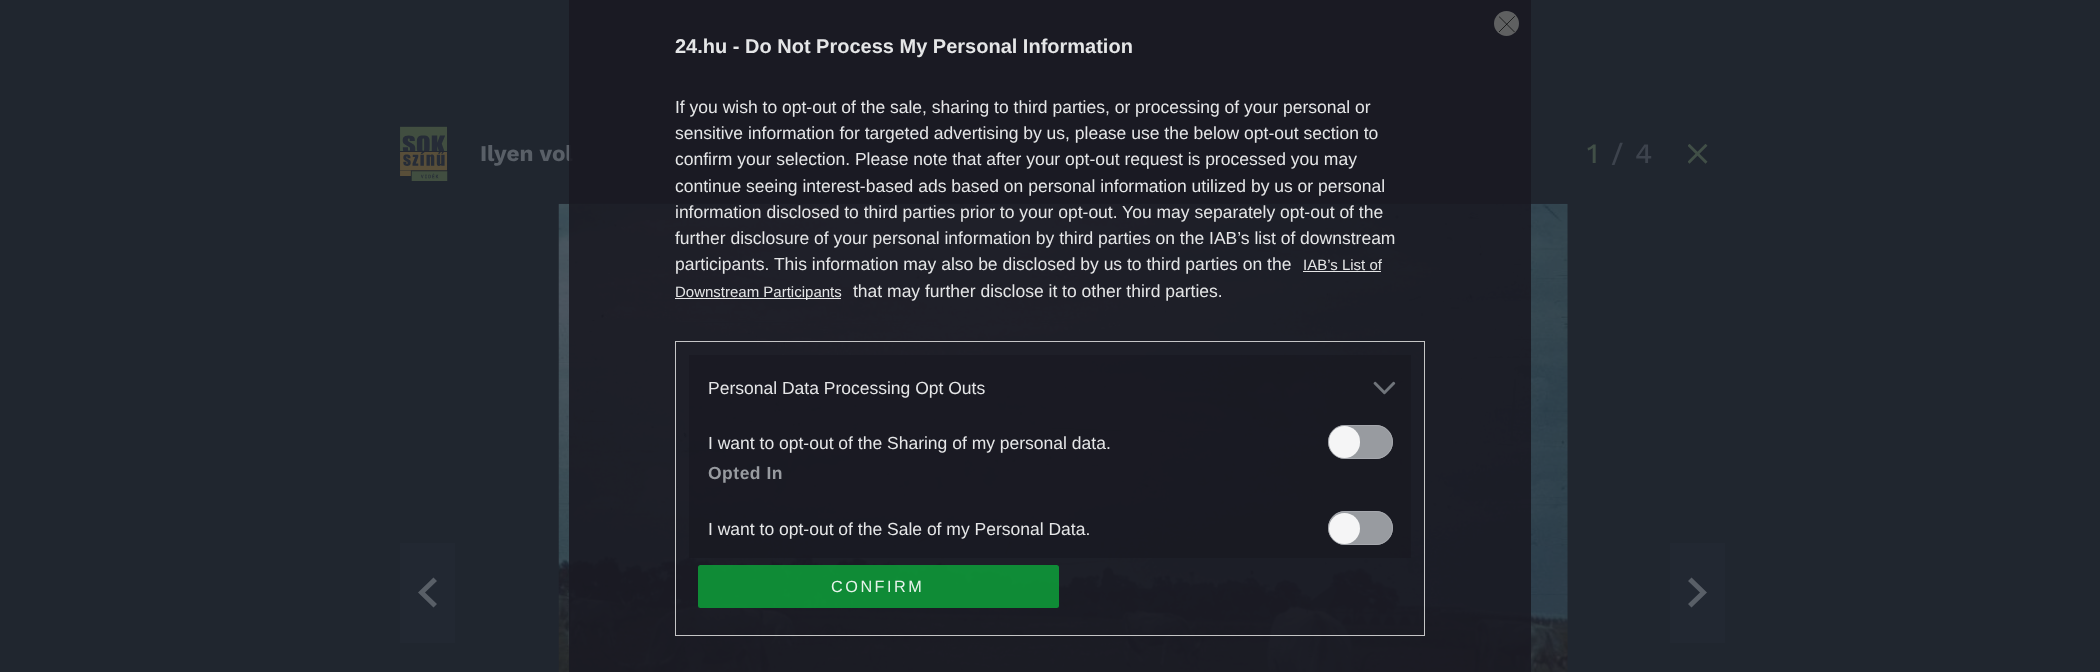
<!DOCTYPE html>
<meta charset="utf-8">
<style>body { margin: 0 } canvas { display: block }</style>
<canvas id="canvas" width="2100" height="672"></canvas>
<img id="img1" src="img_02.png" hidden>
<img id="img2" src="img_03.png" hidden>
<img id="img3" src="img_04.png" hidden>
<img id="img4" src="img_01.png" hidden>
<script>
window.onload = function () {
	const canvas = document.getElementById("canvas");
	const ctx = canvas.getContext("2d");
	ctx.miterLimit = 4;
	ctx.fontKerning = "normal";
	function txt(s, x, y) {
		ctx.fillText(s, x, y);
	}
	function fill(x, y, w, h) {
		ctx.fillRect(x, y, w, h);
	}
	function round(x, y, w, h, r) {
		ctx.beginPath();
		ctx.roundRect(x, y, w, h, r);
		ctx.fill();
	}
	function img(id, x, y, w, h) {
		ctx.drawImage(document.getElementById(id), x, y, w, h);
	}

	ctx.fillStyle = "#20262F";
	fill(0, 0, 2100, 672);
	img("img1", 400, 126, 48, 55);
	img("img2", 1688, 144, 20, 20);
	ctx.fillStyle = "#222832";
	fill(400, 543, 55, 100);
	ctx.fillStyle = "#595F67";
	ctx.beginPath();
	ctx.moveTo(433.5, 577.5);
	ctx.lineTo(437, 581);
	ctx.lineTo(425, 592.5);
	ctx.lineTo(437, 604);
	ctx.lineTo(433.5, 607.5);
	ctx.lineTo(418, 592.5);
	ctx.closePath();
	ctx.fill();
	img("img3", 558, 203, 1010, 469);
	ctx.fillStyle = "#222832";
	fill(1670, 543, 55, 100);
	ctx.fillStyle = "#595F67";
	ctx.beginPath();
	ctx.moveTo(1691.5, 607.5);
	ctx.lineTo(1688, 604);
	ctx.lineTo(1700, 592.5);
	ctx.lineTo(1688, 581);
	ctx.lineTo(1691.5, 577.5);
	ctx.lineTo(1707, 592.5);
	ctx.closePath();
	ctx.fill();
	ctx.font = "bold 22.5px Work Sans";
	txt("Ilyen vol", 480, 161);
	ctx.fillStyle = "rgba(25, 25, 34, 0.9)";
	fill(569, 0, 962, 672);
	ctx.strokeStyle = "rgba(216, 216, 216, 0.9)";
	ctx.strokeRect(675.5, 341.5, 749, 294);
	fill(689, 355, 722, 203);
	ctx.fillStyle = "#989BA0";
	round(1328, 511, 65, 34, 17);
	ctx.beginPath();
	ctx.roundRect(1328.5, 511.5, 64, 33, 16.5);
	ctx.strokeStyle = "rgba(166, 169, 174, 0.9)";
	ctx.stroke();
	ctx.fillStyle = "rgba(255, 255, 255, 0.9)";
	ctx.beginPath();
	ctx.arc(1344.5, 528.5, 15.5, 0, Math.PI * 2);
	ctx.fill();
	ctx.fillStyle = "#989BA0";
	round(1328, 425, 65, 34, 17);
	ctx.beginPath();
	ctx.roundRect(1328.5, 425.5, 64, 33, 16.5);
	ctx.stroke();
	ctx.fillStyle = "rgba(255, 255, 255, 0.9)";
	round(1329, 426, 31, 32, 15.5);
	img("img4", 1373, 381, 23, 14);
	ctx.fillStyle = "#5F6061";
	ctx.beginPath();
	ctx.arc(1506.5, 23.5, 12.5, 0, Math.PI * 2);
	ctx.fill();
	ctx.save();
	ctx.beginPath();
	ctx.rect(1499, 16, 16, 17);
	ctx.clip();
	ctx.beginPath();
	ctx.moveTo(1499, 16.5);
	ctx.lineTo(1514.5, 32);
	ctx.moveTo(1514.5, 16.5);
	ctx.lineTo(1499, 32);
	ctx.strokeStyle = "#030405";
	ctx.lineWidth = 0.7;
	ctx.lineCap = "round";
	ctx.lineJoin = "round";
	ctx.stroke();
	ctx.restore();
	ctx.fillStyle = "rgba(14, 152, 57, 0.9)";
	round(698, 565, 361, 43, 2.5);
	ctx.letterSpacing = "2.5px";
	ctx.font = "16.25px Liberation Sans";
	ctx.fillStyle = "#E7F3EB";
	txt("CONFIRM", 831, 592);
	ctx.letterSpacing = "0px";
	ctx.font = "17.5px Liberation Sans";
	ctx.fillStyle = "#E5E6E7";
	txt("I want to opt-out of the Sale of my Personal Data.", 708, 535);
	ctx.letterSpacing = "0.5px";
	ctx.font = "bold 17.5px Liberation Sans";
	ctx.fillStyle = "#989BA0";
	txt("Opted In", 708, 479);
	ctx.letterSpacing = "0px";
	ctx.font = "17.5px Liberation Sans";
	ctx.fillStyle = "#E5E6E7";
	txt("I want to opt-out of the Sharing of my personal data.", 708, 449);
	txt("Personal Data Processing Opt Outs", 708, 394);
	txt("that may further disclose it to other third parties.", 853, 297);
	ctx.fillStyle = "#E5E5E6";
	fill(675, 298, 166, 1);
	ctx.font = "15px Liberation Sans";
	ctx.fillStyle = "#E5E6E7";
	txt("Downstream Participants", 675, 297);
	txt("IAB’s List of", 1303, 270);
	ctx.fillStyle = "#E5E5E6";
	fill(1303, 271, 78, 1);
	ctx.font = "17.5px Liberation Sans";
	ctx.fillStyle = "#E5E6E7";
	txt("participants. This information may also be disclosed by us to third parties on the", 675, 270);
	txt("further disclosure of your personal information by third parties on the IAB’s list of downstream", 675, 244);
	txt("information disclosed to third parties prior to your opt-out. You may separately opt-out of the", 675, 218);
	txt("continue seeing interest-based ads based on personal information utilized by us or personal", 675, 192);
	txt("confirm your selection. Please note that after your opt-out request is processed you may", 675, 165);
	txt("sensitive information for targeted advertising by us, please use the below opt-out section to", 675, 139);
	txt("If you wish to opt-out of the sale, sharing to third parties, or processing of your personal or", 675, 113);
	ctx.font = "bold 20px Liberation Sans";
	txt("24.hu - Do Not Process My Personal Information", 675, 53);
	ctx.font = "500 28px Work Sans";
	ctx.fillStyle = "#414F47";
	txt("1", 1587, 163);
	ctx.fillStyle = "#3D434D";
	txt("/", 1611, 163);
	txt("4", 1635, 163);
};
</script>
